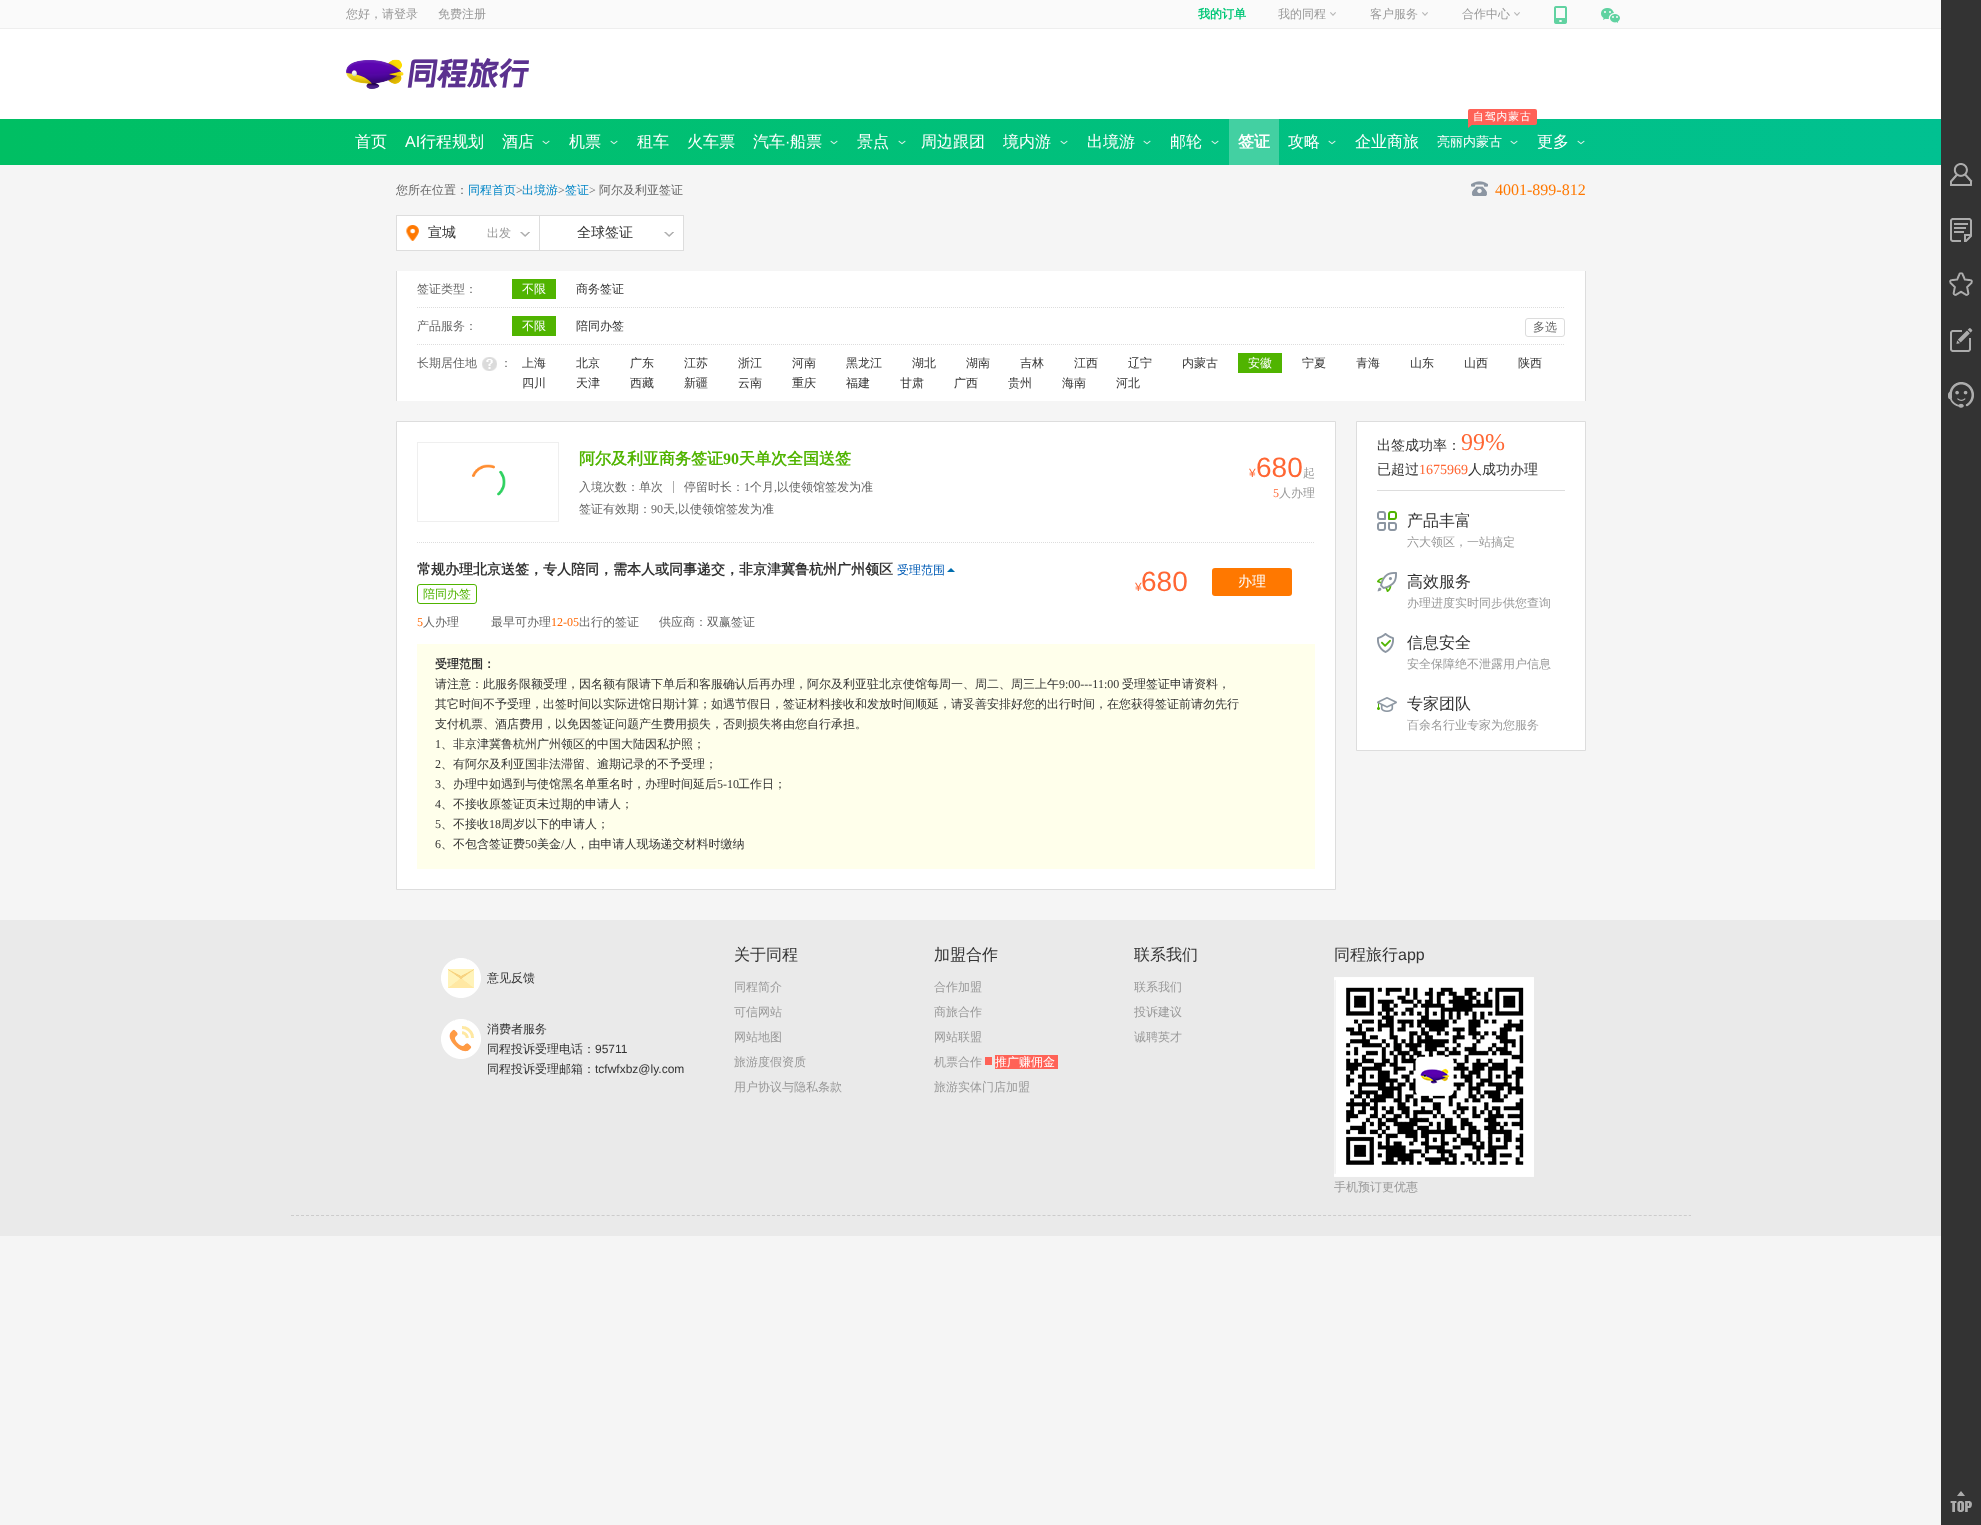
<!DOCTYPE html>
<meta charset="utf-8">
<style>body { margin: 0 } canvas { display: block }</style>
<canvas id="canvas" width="1981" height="1525"></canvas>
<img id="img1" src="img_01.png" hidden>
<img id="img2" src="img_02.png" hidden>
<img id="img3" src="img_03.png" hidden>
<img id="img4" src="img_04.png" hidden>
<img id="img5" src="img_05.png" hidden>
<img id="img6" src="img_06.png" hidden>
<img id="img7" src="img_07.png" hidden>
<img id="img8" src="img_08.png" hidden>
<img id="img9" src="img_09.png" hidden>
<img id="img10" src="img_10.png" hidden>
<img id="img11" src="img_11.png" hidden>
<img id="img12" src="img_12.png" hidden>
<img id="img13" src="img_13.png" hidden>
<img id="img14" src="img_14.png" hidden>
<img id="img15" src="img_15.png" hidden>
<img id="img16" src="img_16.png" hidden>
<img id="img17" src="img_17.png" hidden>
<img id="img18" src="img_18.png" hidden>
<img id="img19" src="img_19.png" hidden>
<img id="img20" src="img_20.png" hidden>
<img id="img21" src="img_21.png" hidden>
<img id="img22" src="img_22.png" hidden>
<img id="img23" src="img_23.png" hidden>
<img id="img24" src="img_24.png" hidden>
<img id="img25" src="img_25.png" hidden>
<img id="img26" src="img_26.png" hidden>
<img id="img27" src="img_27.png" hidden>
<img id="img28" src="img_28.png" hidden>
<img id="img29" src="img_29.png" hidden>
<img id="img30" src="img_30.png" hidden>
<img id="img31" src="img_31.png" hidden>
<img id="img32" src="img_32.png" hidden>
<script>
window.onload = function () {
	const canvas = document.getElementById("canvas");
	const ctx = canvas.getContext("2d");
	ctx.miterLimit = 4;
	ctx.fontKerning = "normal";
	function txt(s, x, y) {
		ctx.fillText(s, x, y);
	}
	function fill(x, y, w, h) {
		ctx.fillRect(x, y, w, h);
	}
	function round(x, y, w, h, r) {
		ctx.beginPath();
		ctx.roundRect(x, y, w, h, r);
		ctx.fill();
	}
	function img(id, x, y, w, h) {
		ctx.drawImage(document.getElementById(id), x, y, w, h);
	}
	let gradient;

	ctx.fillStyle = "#F5F5F5";
	fill(0, 0, 1981, 1525);
	ctx.fillStyle = "#FFFFFF";
	fill(0, 29, 1941, 90);
	ctx.fillStyle = "#FAFAFA";
	fill(0, 0, 1941, 28);
	ctx.fillStyle = "#EEEEEE";
	fill(0, 28, 1941, 1);
	img("img1", 1330, 12, 6, 4);
	img("img1", 1422, 12, 6, 4);
	img("img1", 1514, 12, 6, 4);
	img("img2", 1554, 6, 13, 18);
	img("img3", 1601, 8, 19, 15);
	img("img4", 346, 58, 183, 31);
	gradient = ctx.createLinearGradient(0, 142, 1981, 142);
	gradient.addColorStop(0, "#00BF63");
	gradient.addColorStop(1, "#01C192");
	ctx.fillStyle = gradient;
	fill(0, 119, 1941, 46);
	img("img5", 542, 140, 8, 5);
	img("img6", 610, 140, 8, 5);
	img("img7", 830, 140, 8, 5);
	img("img8", 898, 140, 8, 5);
	img("img9", 1060, 140, 8, 5);
	img("img10", 1143, 140, 8, 5);
	img("img11", 1211, 140, 8, 5);
	ctx.fillStyle = "#43D0A2";
	fill(1229, 119, 50, 46);
	img("img12", 1328, 140, 8, 5);
	ctx.fillStyle = "#FF6257";
	round(1468, 109, 69, 16, 2);
	ctx.beginPath();
	ctx.moveTo(1468, 124);
	ctx.lineTo(1473, 124);
	ctx.lineTo(1468, 128);
	ctx.closePath();
	ctx.fill();
	img("img13", 1510, 140, 8, 5);
	img("img14", 1577, 140, 8, 5);
	ctx.fillStyle = "#333333";
	fill(1941, 0, 40, 1525);
	img("img15", 1950, 163, 23, 23);
	img("img16", 1950, 218, 22, 24);
	img("img17", 1949, 272, 24, 24);
	img("img18", 1950, 328, 23, 24);
	img("img19", 1948, 382, 26, 26);
	img("img20", 1950, 1491, 22, 21);
	img("img21", 1471, 181, 17, 15);
	ctx.fillStyle = "#FFFFFF";
	fill(397, 216, 142, 34);
	img("img22", 406, 225, 13, 16);
	ctx.strokeStyle = "#DDDDDD";
	ctx.strokeRect(396.5, 215.5, 143, 35);
	img("img23", 520, 232, 10, 5);
	fill(540, 216, 143, 34);
	ctx.fillStyle = "#DDDDDD";
	fill(540, 215, 144, 1);
	fill(683, 215, 1, 36);
	fill(540, 250, 144, 1);
	img("img23", 664, 232, 10, 5);
	ctx.fillStyle = "#FFFFFF";
	fill(397, 271, 1188, 130);
	ctx.fillStyle = "#DDDDDD";
	fill(1585, 271, 1, 130);
	fill(396, 271, 1, 130);
	ctx.fillStyle = "#50B400";
	fill(512, 279, 44, 20);
	ctx.beginPath();
	ctx.moveTo(417, 307.5);
	ctx.lineTo(1565, 307.5);
	ctx.setLineDash([1, 1]);
	ctx.stroke();
	fill(512, 316, 44, 20);
	ctx.beginPath();
	ctx.roundRect(1525.5, 318.5, 39, 18, 2.5);
	ctx.strokeStyle = "#DCDCDC";
	ctx.setLineDash([]);
	ctx.stroke();
	ctx.beginPath();
	ctx.moveTo(417, 344.5);
	ctx.lineTo(1565, 344.5);
	ctx.strokeStyle = "#DDDDDD";
	ctx.setLineDash([1, 1]);
	ctx.stroke();
	img("img24", 482, 357, 15, 14);
	fill(1238, 353, 44, 20);
	ctx.fillStyle = "#FFFFFF";
	ctx.beginPath();
	ctx.rect(396.5, 421.5, 939, 468);
	ctx.fill();
	ctx.setLineDash([]);
	ctx.stroke();
	img("img25", 471, 464, 35, 32);
	ctx.strokeStyle = "#EFEFEF";
	ctx.strokeRect(417.5, 442.5, 141, 79);
	ctx.fillStyle = "#ADADAD";
	fill(673, 481, 1, 12);
	ctx.beginPath();
	ctx.moveTo(417, 542.5);
	ctx.lineTo(1315, 542.5);
	ctx.strokeStyle = "#DDDDDD";
	ctx.setLineDash([1, 1]);
	ctx.stroke();
	ctx.fillStyle = "#006DAE";
	ctx.beginPath();
	ctx.moveTo(955, 572);
	ctx.lineTo(947, 572);
	ctx.lineTo(951, 568);
	ctx.closePath();
	ctx.fill();
	ctx.beginPath();
	ctx.roundRect(417.5, 584.5, 59, 19, 2.5);
	ctx.strokeStyle = "#50B400";
	ctx.setLineDash([]);
	ctx.stroke();
	ctx.fillStyle = "#FF7800";
	round(1212, 568, 80, 28, 3);
	ctx.fillStyle = "#FFFFEB";
	fill(417, 644, 898, 225);
	ctx.fillStyle = "#FFFFFF";
	ctx.beginPath();
	ctx.rect(1356.5, 421.5, 229, 329);
	ctx.fill();
	ctx.strokeStyle = "#DDDDDD";
	ctx.stroke();
	ctx.fillStyle = "#DDDDDD";
	fill(1377, 490, 188, 1);
	img("img26", 1377, 511, 20, 20);
	img("img27", 1377, 572, 20, 20);
	img("img28", 1377, 633, 17, 20);
	img("img29", 1377, 697, 20, 15);
	ctx.fillStyle = "#EAEAEA";
	fill(0, 920, 1941, 316);
	ctx.beginPath();
	ctx.moveTo(291, 1215.5);
	ctx.lineTo(1691, 1215.5);
	ctx.strokeStyle = "#CCCCCC";
	ctx.setLineDash([3, 2.01]);
	ctx.stroke();
	img("img30", 441, 958, 40, 40);
	img("img31", 441, 1019, 40, 40);
	ctx.fillStyle = "#FF6257";
	fill(985, 1057, 7, 8);
	fill(995, 1055, 63, 14);
	img("img32", 1334, 977, 200, 200);
	ctx.font = "500 12px WenQuanYi Zen Hei";
	ctx.fillStyle = "#999999";
	txt("您好，请登录", 346, 18);
	txt("免费注册", 438, 18);
	ctx.font = "bold 12px WenQuanYi Zen Hei";
	ctx.fillStyle = "#00C777";
	txt("我的订单", 1198, 18);
	ctx.font = "500 12px WenQuanYi Zen Hei";
	ctx.fillStyle = "#999999";
	txt("我的同程", 1278, 18);
	txt("客户服务", 1370, 18);
	txt("合作中心", 1462, 18);
	ctx.font = "500 16px WenQuanYi Zen Hei";
	ctx.fillStyle = "#FFFFFF";
	txt("首页", 355, 147);
	ctx.font = "16px Liberation Sans";
	txt("AI", 405, 147);
	ctx.font = "500 16px WenQuanYi Zen Hei";
	txt("行程规划", 420, 147);
	txt("酒店", 502, 147);
	txt("机票", 569, 147);
	txt("租车", 637, 147);
	txt("火车票", 687, 147);
	txt("汽车", 753, 147);
	ctx.font = "16px Liberation Sans";
	txt("·", 785, 147);
	ctx.font = "500 16px WenQuanYi Zen Hei";
	txt("船票", 790, 147);
	txt("景点", 857, 147);
	txt("周边跟团", 921, 147);
	txt("境内游", 1003, 147);
	txt("出境游", 1087, 147);
	txt("邮轮", 1170, 147);
	ctx.font = "bold 16px WenQuanYi Zen Hei";
	txt("签证", 1238, 147);
	ctx.font = "500 16px WenQuanYi Zen Hei";
	txt("攻略", 1288, 147);
	txt("企业商旅", 1355, 147);
	ctx.letterSpacing = "1px";
	ctx.font = "500 10.75px WenQuanYi Zen Hei";
	txt("自驾内蒙古", 1473, 120);
	ctx.letterSpacing = "0px";
	ctx.font = "500 13px WenQuanYi Zen Hei";
	txt("亮丽内蒙古", 1437, 146);
	ctx.font = "500 16px WenQuanYi Zen Hei";
	txt("更多", 1537, 147);
	ctx.font = "500 12px WenQuanYi Zen Hei";
	ctx.fillStyle = "#666666";
	txt("您所在位置：", 396, 194);
	ctx.fillStyle = "#0185C6";
	txt("同程首页", 468, 194);
	ctx.font = "12px Liberation Serif";
	ctx.fillStyle = "#666666";
	txt(">", 516, 194);
	ctx.font = "500 12px WenQuanYi Zen Hei";
	ctx.fillStyle = "#0185C6";
	txt("出境游", 522, 194);
	ctx.font = "12px Liberation Serif";
	ctx.fillStyle = "#666666";
	txt(">", 558, 194);
	ctx.font = "500 12px WenQuanYi Zen Hei";
	ctx.fillStyle = "#0185C6";
	txt("签证", 565, 194);
	ctx.font = "12px Liberation Serif";
	ctx.fillStyle = "#666666";
	txt(">", 589, 194);
	ctx.font = "500 12px WenQuanYi Zen Hei";
	txt("阿尔及利亚签证", 599, 194);
	ctx.font = "16px Liberation Serif";
	ctx.fillStyle = "#FF7800";
	txt("4001-899-812", 1495, 195);
	ctx.font = "500 14px WenQuanYi Zen Hei";
	ctx.fillStyle = "#333333";
	txt("宣城", 428, 237);
	ctx.font = "500 12px WenQuanYi Zen Hei";
	ctx.fillStyle = "#999999";
	txt("出发", 487, 237);
	ctx.font = "500 14px WenQuanYi Zen Hei";
	ctx.fillStyle = "#333333";
	txt("全球签证", 577, 237);
	ctx.font = "500 12px WenQuanYi Zen Hei";
	ctx.fillStyle = "#666666";
	txt("签证类型：", 417, 293);
	ctx.fillStyle = "#FFFFFF";
	txt("不限", 522, 293);
	ctx.fillStyle = "#333333";
	txt("商务签证", 576, 293);
	ctx.fillStyle = "#666666";
	txt("产品服务：", 417, 330);
	ctx.fillStyle = "#FFFFFF";
	txt("不限", 522, 330);
	ctx.fillStyle = "#333333";
	txt("陪同办签", 576, 330);
	ctx.fillStyle = "#666666";
	txt("多选", 1533, 331);
	txt("长期居住地", 417, 367);
	txt("：", 500, 367);
	ctx.fillStyle = "#333333";
	txt("上海", 522, 367);
	txt("北京", 576, 367);
	txt("广东", 630, 367);
	txt("江苏", 684, 367);
	txt("浙江", 738, 367);
	txt("河南", 792, 367);
	txt("黑龙江", 846, 367);
	txt("湖北", 912, 367);
	txt("湖南", 966, 367);
	txt("吉林", 1020, 367);
	txt("江西", 1074, 367);
	txt("辽宁", 1128, 367);
	txt("内蒙古", 1182, 367);
	ctx.fillStyle = "#FFFFFF";
	txt("安徽", 1248, 367);
	ctx.fillStyle = "#333333";
	txt("宁夏", 1302, 367);
	txt("青海", 1356, 367);
	txt("山东", 1410, 367);
	txt("山西", 1464, 367);
	txt("陕西", 1518, 367);
	txt("四川", 522, 387);
	txt("天津", 576, 387);
	txt("西藏", 630, 387);
	txt("新疆", 684, 387);
	txt("云南", 738, 387);
	txt("重庆", 792, 387);
	txt("福建", 846, 387);
	txt("甘肃", 900, 387);
	txt("广西", 954, 387);
	txt("贵州", 1008, 387);
	txt("海南", 1062, 387);
	txt("河北", 1116, 387);
	ctx.font = "bold 16px WenQuanYi Zen Hei";
	ctx.fillStyle = "#50B400";
	txt("阿尔及利亚商务签证", 579, 464);
	ctx.font = "bold 16px Liberation Serif";
	txt("90", 723, 464);
	ctx.font = "bold 16px WenQuanYi Zen Hei";
	txt("天单次全国送签", 739, 464);
	ctx.font = "500 12px WenQuanYi Zen Hei";
	ctx.fillStyle = "#666666";
	txt("入境次数：单次", 579, 491);
	txt("停留时长：", 684, 491);
	ctx.font = "12px Liberation Serif";
	txt("1", 744, 491);
	ctx.font = "500 12px WenQuanYi Zen Hei";
	txt("个月", 750, 491);
	ctx.font = "12px Liberation Serif";
	txt(",", 774, 491);
	ctx.font = "500 12px WenQuanYi Zen Hei";
	txt("以使领馆签发为准", 777, 491);
	txt("签证有效期：", 579, 513);
	ctx.font = "12px Liberation Serif";
	txt("90", 651, 513);
	ctx.font = "500 12px WenQuanYi Zen Hei";
	txt("天", 663, 513);
	ctx.font = "12px Liberation Serif";
	txt(",", 675, 513);
	ctx.font = "500 12px WenQuanYi Zen Hei";
	txt("以使领馆签发为准", 678, 513);
	ctx.font = "12px Liberation Sans";
	ctx.fillStyle = "#FF6633";
	txt("¥", 1249, 477);
	ctx.font = "28px Liberation Sans";
	txt("680", 1256, 477);
	ctx.font = "500 12px WenQuanYi Zen Hei";
	ctx.fillStyle = "#999999";
	txt("起", 1303, 477);
	ctx.font = "12px Liberation Serif";
	ctx.fillStyle = "#FF6633";
	txt("5", 1273, 497);
	ctx.font = "500 12px WenQuanYi Zen Hei";
	ctx.fillStyle = "#999999";
	txt("人办理", 1279, 497);
	ctx.font = "bold 14px WenQuanYi Zen Hei";
	ctx.fillStyle = "#333333";
	txt("常规办理北京送签，专人陪同，需本人或同事递交，非京津冀鲁杭州广州领区", 417, 574);
	ctx.font = "500 12px WenQuanYi Zen Hei";
	ctx.fillStyle = "#005BB5";
	txt("受理范围", 897, 574);
	ctx.fillStyle = "#50B400";
	txt("陪同办签", 423, 598);
	ctx.font = "12px Liberation Serif";
	ctx.fillStyle = "#FF6600";
	txt("5", 417, 626);
	ctx.font = "500 12px WenQuanYi Zen Hei";
	ctx.fillStyle = "#666666";
	txt("人办理", 423, 626);
	txt("最早可办理", 491, 626);
	ctx.font = "12px Liberation Serif";
	ctx.fillStyle = "#FF6600";
	txt("12-05", 551, 626);
	ctx.font = "500 12px WenQuanYi Zen Hei";
	ctx.fillStyle = "#666666";
	txt("出行的签证", 579, 626);
	txt("供应商：双赢签证", 659, 626);
	ctx.font = "12px Liberation Sans";
	ctx.fillStyle = "#FF6633";
	txt("¥", 1135, 591);
	ctx.font = "28px Liberation Sans";
	txt("680", 1141, 591);
	ctx.font = "500 14px WenQuanYi Zen Hei";
	ctx.fillStyle = "#FFFFFF";
	txt("办理", 1238, 586);
	ctx.font = "bold 12px WenQuanYi Zen Hei";
	ctx.fillStyle = "#333333";
	txt("受理范围：", 435, 668);
	ctx.font = "500 12px WenQuanYi Zen Hei";
	txt("请注意：此服务限额受理，因名额有限请下单后和客服确认后再办理，阿尔及利亚驻北京使馆每周一、周二、周三上午", 435, 688);
	ctx.font = "12px Liberation Serif";
	txt("9:00---11:00", 1059, 688);
	ctx.font = "500 12px WenQuanYi Zen Hei";
	txt("受理签证申请资料，", 1122, 688);
	txt("其它时间不予受理，出签时间以实际进馆日期计算；如遇节假日，签证材料接收和发放时间顺延，请妥善安排好您的出行时间，在您获得签证前请勿先行", 435, 708);
	txt("支付机票、酒店费用，以免因签证问题产生费用损失，否则损失将由您自行承担。", 435, 728);
	ctx.font = "12px Liberation Serif";
	txt("1", 435, 748);
	ctx.font = "500 12px WenQuanYi Zen Hei";
	txt("、非京津冀鲁杭州广州领区的中国大陆因私护照；", 441, 748);
	ctx.font = "12px Liberation Serif";
	txt("2", 435, 768);
	ctx.font = "500 12px WenQuanYi Zen Hei";
	txt("、有阿尔及利亚国非法滞留、逾期记录的不予受理；", 441, 768);
	ctx.font = "12px Liberation Serif";
	txt("3", 435, 788);
	ctx.font = "500 12px WenQuanYi Zen Hei";
	txt("、办理中如遇到与使馆黑名单重名时，办理时间延后", 441, 788);
	ctx.font = "12px Liberation Serif";
	txt("5-10", 717, 788);
	ctx.font = "500 12px WenQuanYi Zen Hei";
	txt("工作日；", 738, 788);
	ctx.font = "12px Liberation Serif";
	txt("4", 435, 808);
	ctx.font = "500 12px WenQuanYi Zen Hei";
	txt("、不接收原签证页未过期的申请人；", 441, 808);
	ctx.font = "12px Liberation Serif";
	txt("5", 435, 828);
	ctx.font = "500 12px WenQuanYi Zen Hei";
	txt("、不接收", 441, 828);
	ctx.font = "12px Liberation Serif";
	txt("18", 489, 828);
	ctx.font = "500 12px WenQuanYi Zen Hei";
	txt("周岁以下的申请人；", 501, 828);
	ctx.font = "12px Liberation Serif";
	txt("6", 435, 848);
	ctx.font = "500 12px WenQuanYi Zen Hei";
	txt("、不包含签证费", 441, 848);
	ctx.font = "12px Liberation Serif";
	txt("50", 525, 848);
	ctx.font = "500 12px WenQuanYi Zen Hei";
	txt("美金 人，由申请人现场递交材料时缴纳", 537, 848);
	ctx.font = "12px Liberation Serif";
	txt("/", 561, 848);
	ctx.font = "500 14px WenQuanYi Zen Hei";
	txt("出签成功率：", 1377, 450);
	ctx.font = "24px Liberation Serif";
	ctx.fillStyle = "#FF6633";
	txt("99%", 1461, 450);
	ctx.font = "500 14px WenQuanYi Zen Hei";
	ctx.fillStyle = "#333333";
	txt("已超过", 1377, 474);
	ctx.font = "14px Liberation Serif";
	ctx.fillStyle = "#FF6633";
	txt("1675969", 1419, 474);
	ctx.font = "500 14px WenQuanYi Zen Hei";
	ctx.fillStyle = "#333333";
	txt("人成功办理", 1468, 474);
	ctx.font = "500 16px WenQuanYi Zen Hei";
	txt("产品丰富", 1407, 526);
	ctx.font = "500 12px WenQuanYi Zen Hei";
	ctx.fillStyle = "#999999";
	txt("六大领区，一站搞定", 1407, 546);
	ctx.font = "500 16px WenQuanYi Zen Hei";
	ctx.fillStyle = "#333333";
	txt("高效服务", 1407, 587);
	ctx.font = "500 12px WenQuanYi Zen Hei";
	ctx.fillStyle = "#999999";
	txt("办理进度实时同步供您查询", 1407, 607);
	ctx.font = "500 16px WenQuanYi Zen Hei";
	ctx.fillStyle = "#333333";
	txt("信息安全", 1407, 648);
	ctx.font = "500 12px WenQuanYi Zen Hei";
	ctx.fillStyle = "#999999";
	txt("安全保障绝不泄露用户信息", 1407, 668);
	ctx.font = "500 16px WenQuanYi Zen Hei";
	ctx.fillStyle = "#333333";
	txt("专家团队", 1407, 709);
	ctx.font = "500 12px WenQuanYi Zen Hei";
	ctx.fillStyle = "#999999";
	txt("百余名行业专家为您服务", 1407, 729);
	ctx.fillStyle = "#333333";
	txt("意见反馈", 487, 982);
	txt("消费者服务", 487, 1033);
	txt("同程投诉受理电话：", 487, 1053);
	ctx.font = "12px Liberation Sans";
	txt("95711", 595, 1053);
	ctx.font = "500 12px WenQuanYi Zen Hei";
	txt("同程投诉受理邮箱：", 487, 1073);
	ctx.font = "12px Liberation Sans";
	txt("tcfwfxbz@ly.com", 595, 1073);
	ctx.font = "500 16px WenQuanYi Zen Hei";
	txt("关于同程", 734, 960);
	ctx.font = "500 12px WenQuanYi Zen Hei";
	ctx.fillStyle = "#999999";
	txt("同程简介", 734, 991);
	txt("可信网站", 734, 1016);
	txt("网站地图", 734, 1041);
	txt("旅游度假资质", 734, 1066);
	txt("用户协议与隐私条款", 734, 1091);
	ctx.font = "500 16px WenQuanYi Zen Hei";
	ctx.fillStyle = "#333333";
	txt("加盟合作", 934, 960);
	ctx.font = "500 12px WenQuanYi Zen Hei";
	ctx.fillStyle = "#999999";
	txt("合作加盟", 934, 991);
	txt("商旅合作", 934, 1016);
	txt("网站联盟", 934, 1041);
	txt("机票合作", 934, 1066);
	ctx.fillStyle = "#FFFFFF";
	txt("推广赚佣金", 995, 1066);
	ctx.fillStyle = "#999999";
	txt("旅游实体门店加盟", 934, 1091);
	ctx.font = "500 16px WenQuanYi Zen Hei";
	ctx.fillStyle = "#333333";
	txt("联系我们", 1134, 960);
	ctx.font = "500 12px WenQuanYi Zen Hei";
	ctx.fillStyle = "#999999";
	txt("联系我们", 1134, 991);
	txt("投诉建议", 1134, 1016);
	txt("诚聘英才", 1134, 1041);
	ctx.font = "500 16px WenQuanYi Zen Hei";
	ctx.fillStyle = "#333333";
	txt("同程旅行", 1334, 960);
	ctx.font = "16px Liberation Sans";
	txt("app", 1398, 960);
	ctx.font = "500 12px WenQuanYi Zen Hei";
	ctx.fillStyle = "#999999";
	txt("手机预订更优惠", 1334, 1191);
};
</script>
